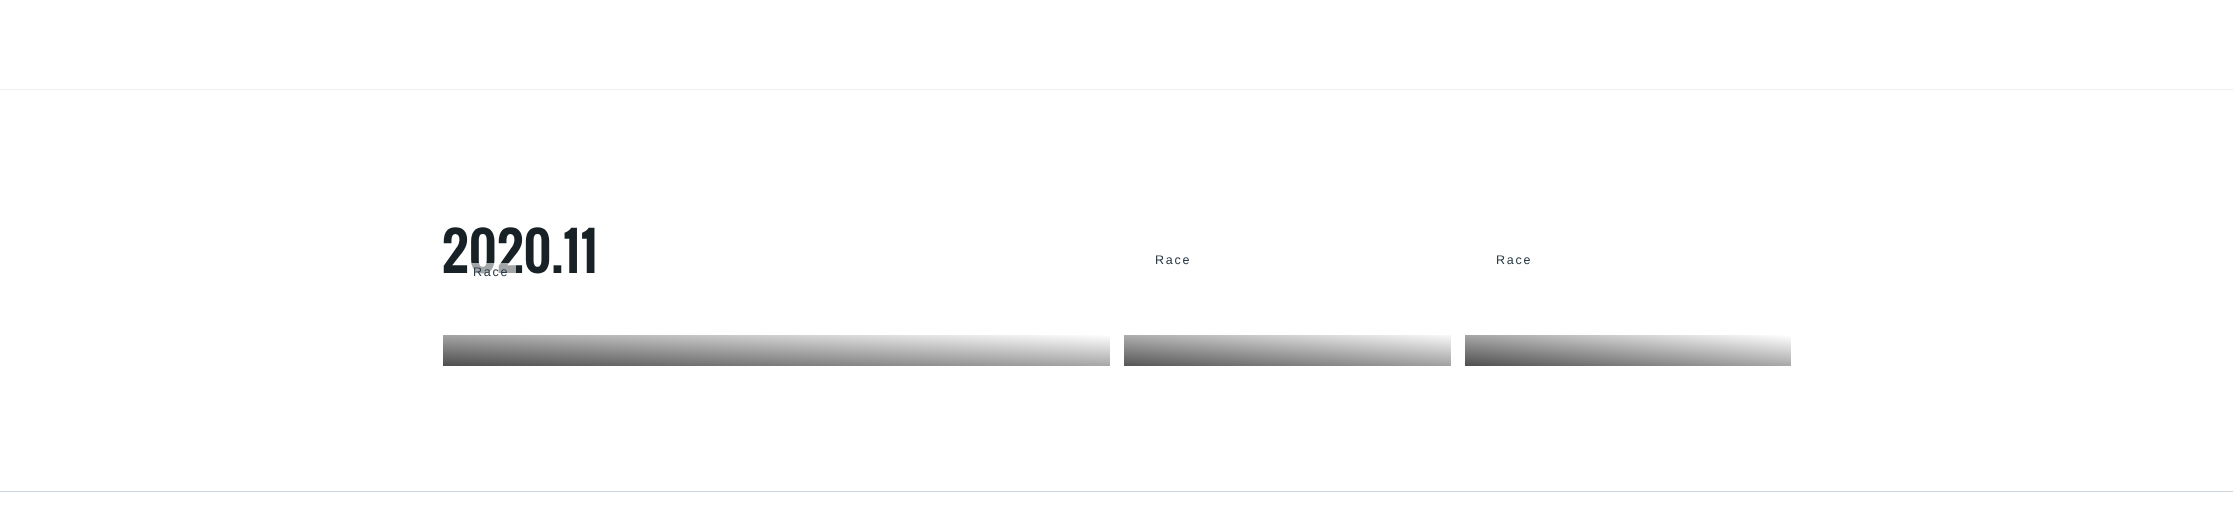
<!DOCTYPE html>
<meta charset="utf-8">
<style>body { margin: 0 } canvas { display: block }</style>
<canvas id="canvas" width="2233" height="518"></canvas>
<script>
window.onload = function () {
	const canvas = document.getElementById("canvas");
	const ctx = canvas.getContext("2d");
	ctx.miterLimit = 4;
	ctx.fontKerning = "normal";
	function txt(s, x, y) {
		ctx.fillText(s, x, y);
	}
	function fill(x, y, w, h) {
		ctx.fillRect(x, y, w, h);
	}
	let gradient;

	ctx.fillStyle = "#FFFFFF";
	fill(0, 0, 2233, 518);
	ctx.fillStyle = "#EEEEEE";
	fill(0, 89, 2233, 1);
	gradient = ctx.createLinearGradient(1290, 320, 1285, 382);
	gradient.addColorStop(0, "#FFFFFF");
	gradient.addColorStop(1, "#4D4D4D");
	ctx.fillStyle = gradient;
	fill(1124, 335, 327, 31);
	gradient = ctx.createLinearGradient(1631, 320, 1625, 382);
	gradient.addColorStop(0, "#FFFFFF");
	gradient.addColorStop(1, "#4D4D4D");
	ctx.fillStyle = gradient;
	fill(1465, 335, 326, 31);
	gradient = ctx.createLinearGradient(778, 319, 775, 382);
	gradient.addColorStop(0, "#FFFFFF");
	gradient.addColorStop(1, "#4D4D4D");
	ctx.fillStyle = gradient;
	fill(443, 335, 667, 31);
	ctx.fillStyle = "#CCD5DB";
	fill(0, 491, 2233, 1);
	ctx.letterSpacing = "1.75px";
	ctx.font = "bold 50px Oswald";
	ctx.fillStyle = "#182126";
	txt("2020.11", 442, 273);
	ctx.font = "12.5px Liberation Sans";
	ctx.fillStyle = "#293944";
	txt("Race", 1155, 264);
	txt("Race", 1496, 264);
	ctx.fillStyle = "rgba(255, 255, 255, 0.6)";
	fill(471, 263, 45, 11);
	ctx.fillStyle = "#293944";
	txt("Race", 473, 276);
};
</script>
